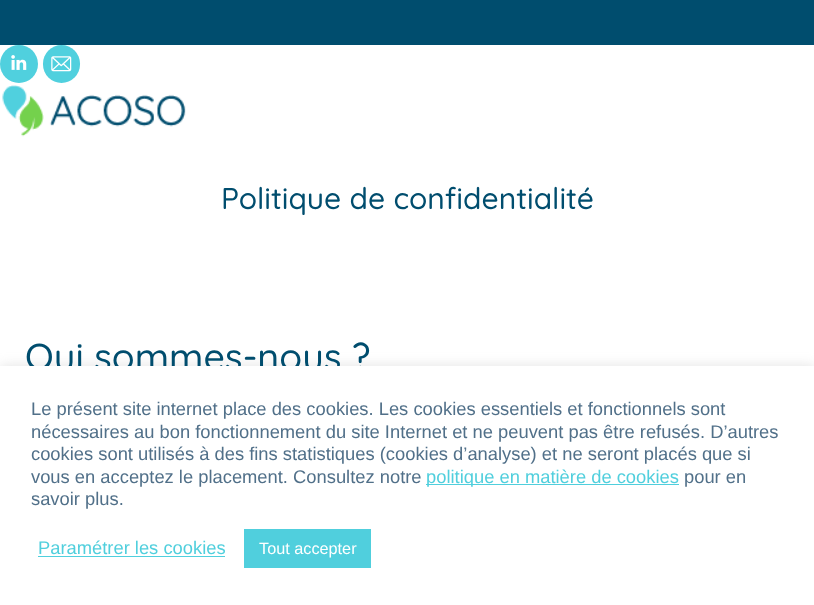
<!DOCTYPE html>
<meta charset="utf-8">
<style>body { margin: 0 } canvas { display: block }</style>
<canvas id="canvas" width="814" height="605"></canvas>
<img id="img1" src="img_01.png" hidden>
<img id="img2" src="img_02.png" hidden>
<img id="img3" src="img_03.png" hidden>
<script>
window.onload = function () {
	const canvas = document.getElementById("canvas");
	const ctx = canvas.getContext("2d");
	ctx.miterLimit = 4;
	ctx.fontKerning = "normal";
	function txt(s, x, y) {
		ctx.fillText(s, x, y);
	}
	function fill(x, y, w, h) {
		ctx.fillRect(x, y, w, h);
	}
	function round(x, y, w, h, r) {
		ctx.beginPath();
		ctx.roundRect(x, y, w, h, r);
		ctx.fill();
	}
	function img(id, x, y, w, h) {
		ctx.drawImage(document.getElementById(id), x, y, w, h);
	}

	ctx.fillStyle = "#FFFFFF";
	fill(0, 0, 814, 605);
	ctx.fillStyle = "#004D6E";
	fill(0, 0, 814, 45);
	ctx.fillStyle = "#50D0DE";
	ctx.beginPath();
	ctx.arc(19, 64, 19, 0, Math.PI * 2);
	ctx.fill();
	img("img1", 11, 55, 16, 15);
	round(43, 45, 37, 38, 18.5);
	img("img2", 51, 56, 21, 16);
	img("img3", 2, 85, 184, 52);
	ctx.fillStyle = "rgba(172, 171, 171, 0.3)";
	ctx.filter = "blur(6px)";
	ctx.beginPath();
	ctx.rect(0, 365, 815, 239);
	ctx.fill();
	ctx.filter = "none";
	ctx.font = "500 30px Quicksand";
	ctx.fillStyle = "#004D6E";
	txt("Politique de confidentialité", 221, 209);
	ctx.font = "500 37.5px Quicksand";
	txt("Qui sommes-nous ?", 25, 370);
	ctx.fillStyle = "#FFFFFF";
	fill(0, 366, 814, 239);
	ctx.font = "18.35px Liberation Sans";
	ctx.fillStyle = "#517089";
	txt("Le présent site internet place des cookies. Les cookies essentiels et fonctionnels sont", 31, 415);
	txt("nécessaires au bon fonctionnement du site Internet et ne peuvent pas être refusés. D’autres", 31, 438);
	txt("cookies sont utilisés à des fins statistiques (cookies d’analyse) et ne seront placés que si", 31, 460);
	txt("vous en acceptez le placement. Consultez notre", 31, 483);
	ctx.fillStyle = "#50CFDD";
	fill(426, 484, 253, 1);
	txt("politique en matière de cookies", 426, 483);
	ctx.fillStyle = "#517089";
	txt("pour en", 684, 483);
	txt("savoir plus.", 31, 505);
	ctx.fillStyle = "#50CFDD";
	txt("Paramétrer les cookies", 38, 554);
	fill(38, 556, 187, 1);
	fill(244, 529, 127, 39);
	ctx.font = "16.25px Liberation Sans";
	ctx.fillStyle = "#FFFFFF";
	txt("Tout accepter", 259, 554);
};
</script>
